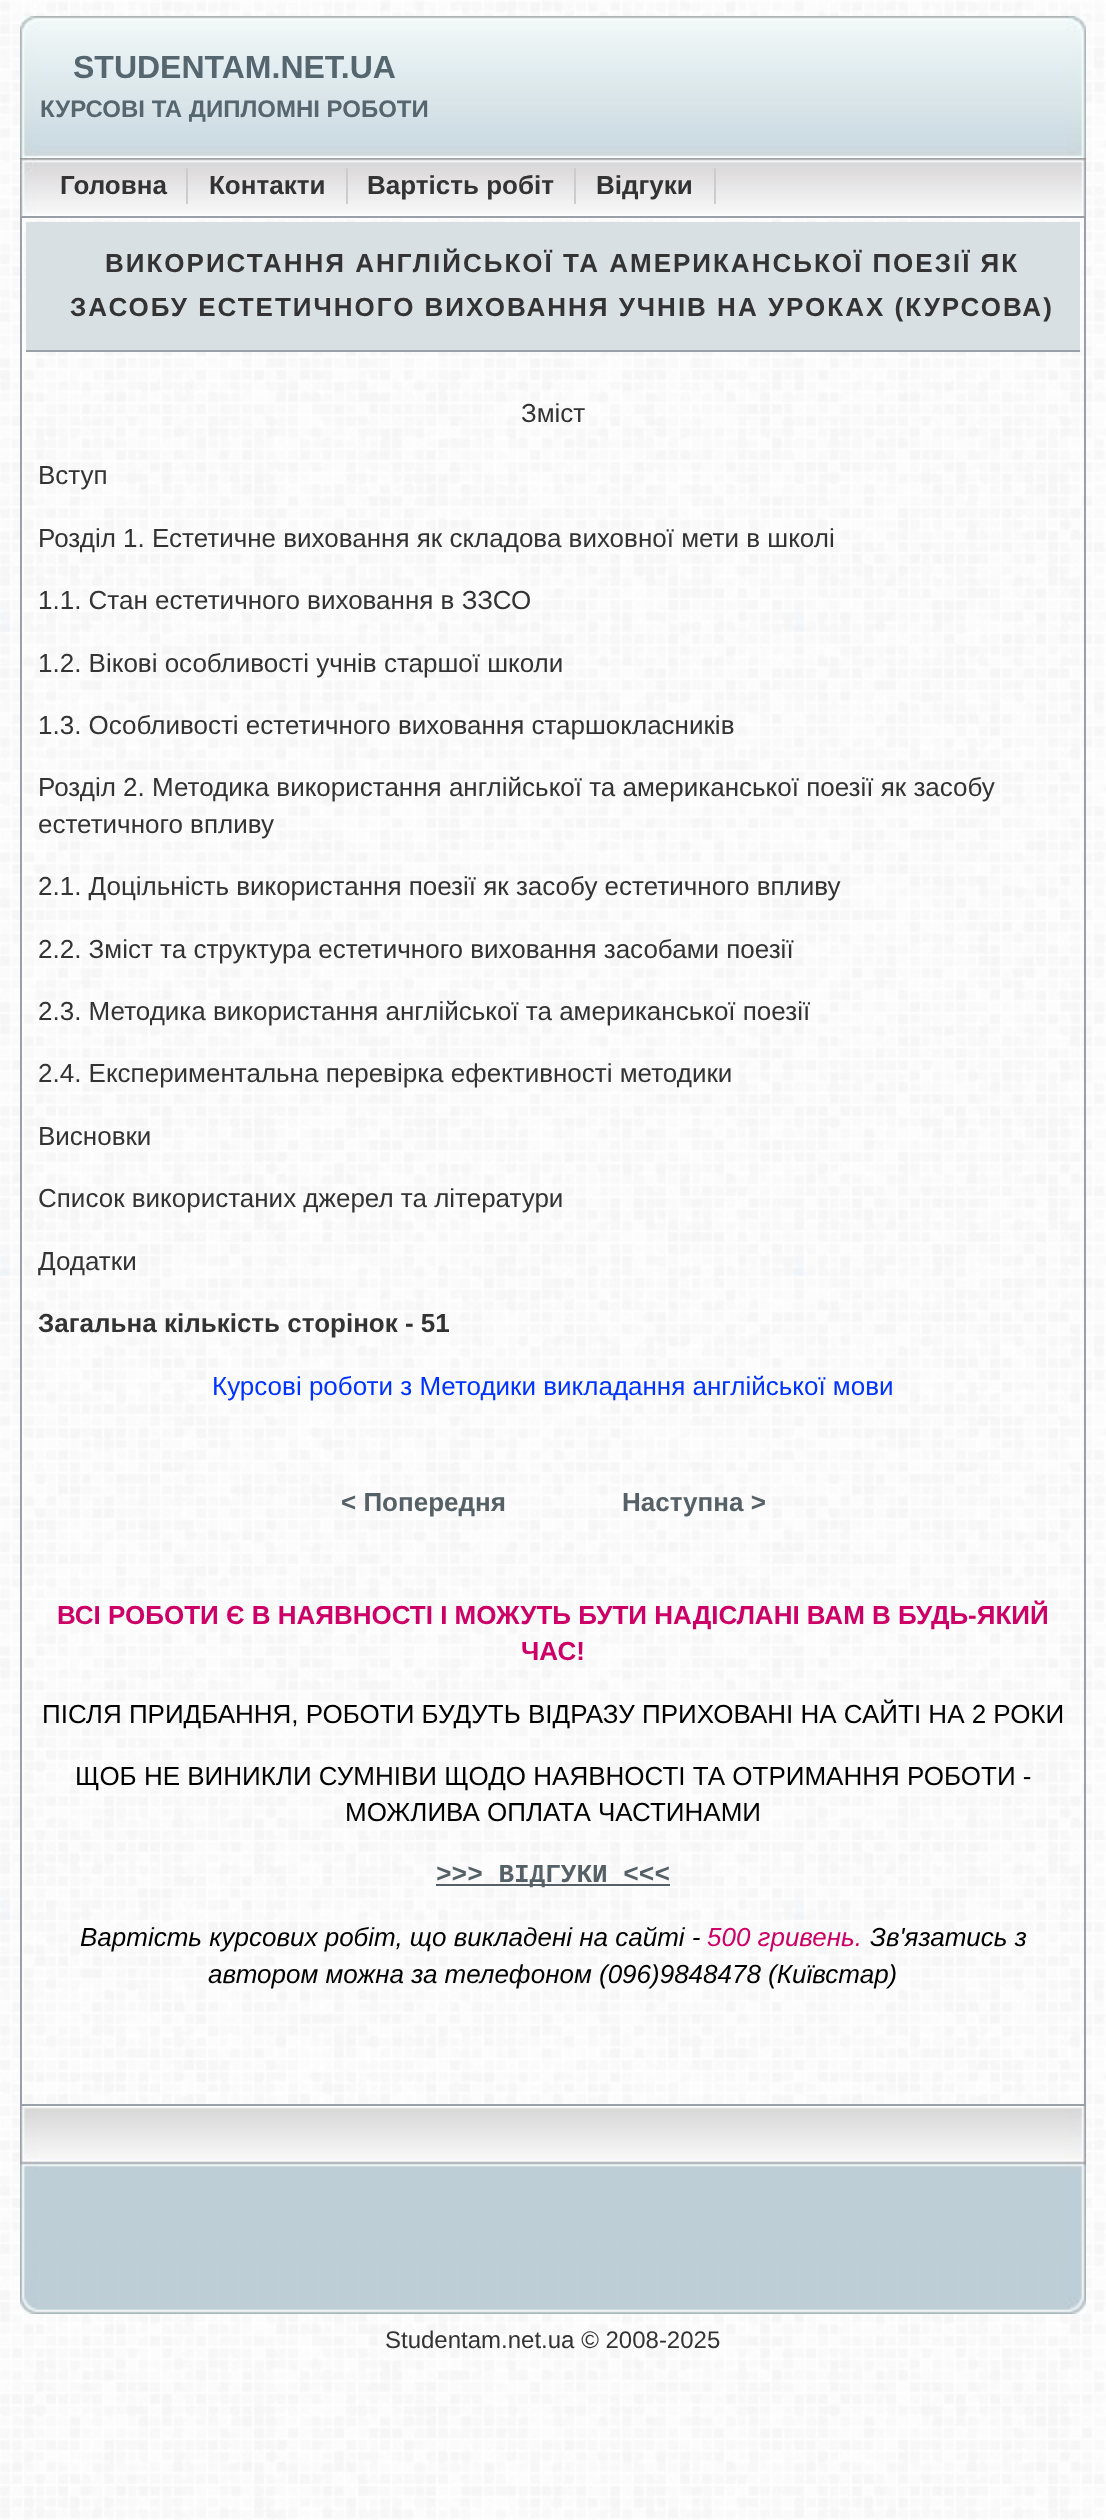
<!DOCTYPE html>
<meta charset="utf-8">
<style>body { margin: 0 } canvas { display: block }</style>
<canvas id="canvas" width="1106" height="2520"></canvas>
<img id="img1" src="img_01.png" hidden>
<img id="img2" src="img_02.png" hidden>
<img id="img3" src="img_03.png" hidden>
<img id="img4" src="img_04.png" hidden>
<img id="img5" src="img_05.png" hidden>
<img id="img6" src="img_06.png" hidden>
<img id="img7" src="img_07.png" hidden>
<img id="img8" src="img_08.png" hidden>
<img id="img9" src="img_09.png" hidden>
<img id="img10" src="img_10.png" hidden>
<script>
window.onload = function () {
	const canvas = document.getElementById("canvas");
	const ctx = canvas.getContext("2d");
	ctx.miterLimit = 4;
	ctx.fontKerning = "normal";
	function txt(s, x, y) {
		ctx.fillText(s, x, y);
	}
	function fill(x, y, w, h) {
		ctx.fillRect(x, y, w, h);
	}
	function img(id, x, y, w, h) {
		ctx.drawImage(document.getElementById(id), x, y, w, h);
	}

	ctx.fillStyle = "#FFFFFF";
	fill(0, 0, 1106, 2520);
	img("img1", 0, 0, 1106, 2520);
	img("img2", 40, 16, 1026, 142);
	img("img3", 20, 16, 20, 142);
	img("img4", 1066, 16, 20, 142);
	img("img5", 36, 158, 1045, 58);
	img("img6", 20, 158, 16, 58);
	ctx.fillStyle = "#CCCCCC";
	fill(186, 168, 2, 36);
	fill(346, 168, 2, 36);
	fill(574, 168, 2, 36);
	fill(714, 168, 2, 36);
	img("img7", 1081, 158, 5, 58);
	ctx.fillStyle = "#D8E0E4";
	fill(26, 222, 1054, 128);
	ctx.fillStyle = "#99A0AA";
	fill(26, 350, 1054, 2);
	ctx.fillStyle = "#556166";
	fill(436, 1884, 234, 2);
	ctx.strokeStyle = "#99A0AA";
	ctx.lineWidth = 2;
	ctx.strokeRect(21, 217, 1064, 1888);
	img("img8", 37, 2106, 1029, 208);
	img("img9", 20, 2106, 17, 208);
	img("img10", 1066, 2106, 20, 208);
	ctx.font = "bold 32px Liberation Sans";
	ctx.fillStyle = "#56666E";
	txt("STUDENTAM.NET.UA", 73, 78);
	ctx.font = "bold 24px Liberation Sans";
	txt("КУРСОВІ ТА ДИПЛОМНІ РОБОТИ", 40, 117);
	ctx.font = "bold 26px Liberation Sans";
	ctx.fillStyle = "#333333";
	txt("Головна", 60, 194);
	txt("Контакти", 209, 194);
	txt("Вартість робіт", 367, 194);
	txt("Відгуки", 596, 194);
	ctx.letterSpacing = "2px";
	txt("ВИКОРИСТАННЯ АНГЛІЙСЬКОЇ ТА АМЕРИКАНСЬКОЇ ПОЕЗІЇ ЯК", 105, 272);
	txt("ЗАСОБУ ЕСТЕТИЧНОГО ВИХОВАННЯ УЧНІВ НА УРОКАХ (КУРСОВА)", 70, 316);
	ctx.letterSpacing = "0px";
	ctx.font = "26px Liberation Sans";
	txt("Зміст", 521, 422);
	txt("Вступ", 38, 484);
	txt("Розділ 1. Естетичне виховання як складова виховної мети в школі", 38, 547);
	txt("1.1. Стан естетичного виховання в ЗЗСО", 38, 609);
	txt("1.2. Вікові особливості учнів старшої школи", 38, 672);
	txt("1.3. Особливості естетичного виховання старшокласників", 38, 734);
	txt("Розділ 2. Методика використання англійської та американської поезії як засобу", 38, 796);
	txt("естетичного впливу", 38, 833);
	txt("2.1. Доцільність використання поезії як засобу естетичного впливу", 38, 895);
	txt("2.2. Зміст та структура естетичного виховання засобами поезії", 38, 958);
	txt("2.3. Методика використання англійської та американської поезії", 38, 1020);
	txt("2.4. Експериментальна перевірка ефективності методики", 38, 1082);
	txt("Висновки", 38, 1145);
	txt("Список використаних джерел та літератури", 38, 1207);
	txt("Додатки", 38, 1270);
	ctx.font = "bold 26px Liberation Sans";
	txt("Загальна кількість сторінок - 51", 38, 1332);
	ctx.font = "26px Liberation Sans";
	ctx.fillStyle = "#0033FF";
	txt("Курсові роботи з Методики викладання англійської мови", 212, 1395);
	ctx.font = "bold 26px Liberation Sans";
	ctx.fillStyle = "#556166";
	txt("< Попередня", 341, 1511);
	txt("Наступна >", 622, 1511);
	ctx.fillStyle = "#CC0066";
	txt("ВСІ РОБОТИ Є В НАЯВНОСТІ І МОЖУТЬ БУТИ НАДІСЛАНІ ВАМ В БУДЬ-ЯКИЙ", 57, 1624);
	txt("ЧАС!", 521, 1660);
	ctx.font = "26px Liberation Sans";
	ctx.fillStyle = "#000000";
	txt("ПІСЛЯ ПРИДБАННЯ, РОБОТИ БУДУТЬ ВІДРАЗУ ПРИХОВАНІ НА САЙТІ НА 2 РОКИ", 42, 1723);
	txt("ЩОБ НЕ ВИНИКЛИ СУМНІВИ ЩОДО НАЯВНОСТІ ТА ОТРИМАННЯ РОБОТИ -", 75, 1785);
	txt("МОЖЛИВА ОПЛАТА ЧАСТИНАМИ", 345, 1821);
	ctx.font = "bold 26px Liberation Mono";
	ctx.fillStyle = "#556166";
	txt(">>> ВІДГУКИ <<<", 436, 1882);
	ctx.font = "italic 26px Liberation Sans";
	ctx.fillStyle = "#000000";
	txt("Вартість курсових робіт, що викладені на сайті -", 80, 1946);
	ctx.fillStyle = "#CC0066";
	txt("500 гривень.", 707, 1946);
	ctx.fillStyle = "#000000";
	txt("Зв'язатись з", 870, 1946);
	txt("автором можна за телефоном (096)9848478 (Київстар)", 208, 1983);
	ctx.font = "24px Liberation Sans";
	ctx.fillStyle = "#333333";
	txt("Studentam.net.ua © 2008-2025", 385, 2348);
};
</script>
